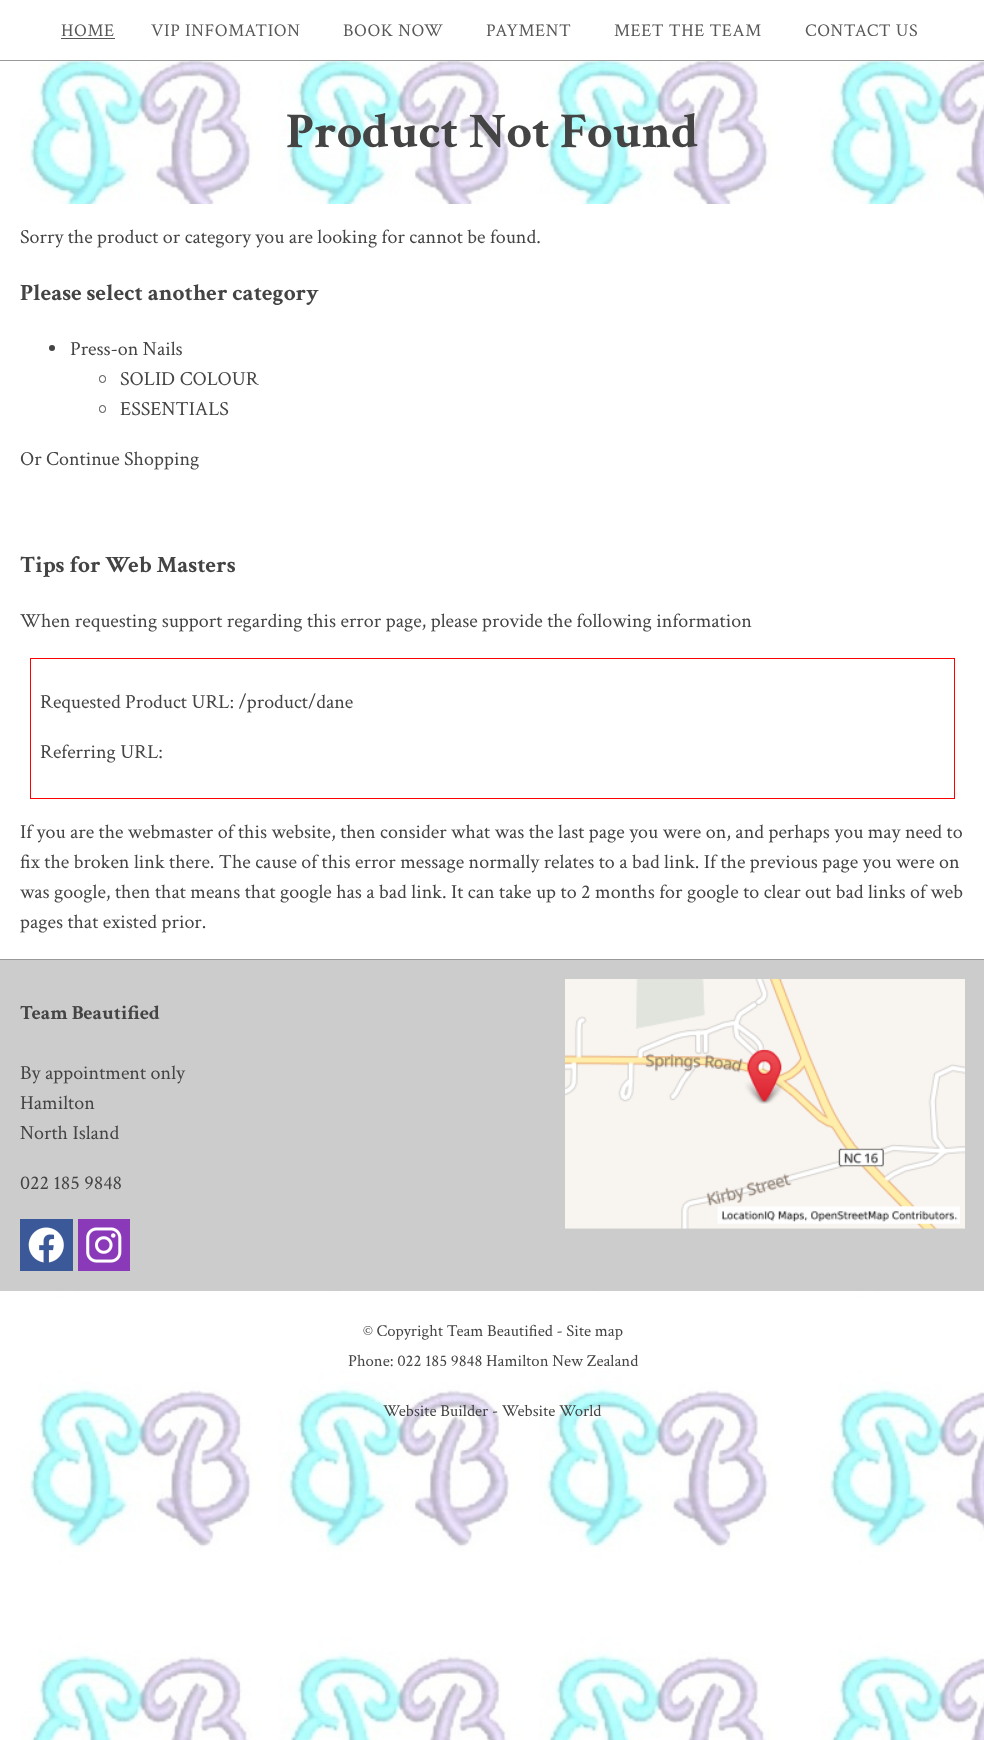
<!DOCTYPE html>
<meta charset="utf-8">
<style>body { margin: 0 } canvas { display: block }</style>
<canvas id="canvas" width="984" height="1740"></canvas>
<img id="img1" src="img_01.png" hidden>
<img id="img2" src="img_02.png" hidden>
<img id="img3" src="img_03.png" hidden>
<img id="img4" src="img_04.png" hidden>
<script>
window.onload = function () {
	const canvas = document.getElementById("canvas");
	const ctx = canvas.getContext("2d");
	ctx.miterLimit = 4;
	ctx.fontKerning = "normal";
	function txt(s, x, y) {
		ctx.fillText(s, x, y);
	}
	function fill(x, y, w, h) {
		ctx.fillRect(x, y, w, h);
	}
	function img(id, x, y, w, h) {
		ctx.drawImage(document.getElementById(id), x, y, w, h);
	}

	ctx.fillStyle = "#FFFFFF";
	fill(0, 0, 984, 1740);
	img("img1", 20, 61, 964, 1679);
	ctx.fillStyle = "#999999";
	fill(0, 60, 984, 1);
	ctx.fillStyle = "#585858";
	fill(61, 38, 54, 1);
	ctx.fillStyle = "#FFFFFF";
	fill(20, 204, 964, 755);
	ctx.fillStyle = "#444444";
	ctx.beginPath();
	ctx.arc(52, 348, 3, 0, Math.PI * 2);
	ctx.fill();
	ctx.beginPath();
	ctx.roundRect(99.5, 375.5, 6, 7, 3);
	ctx.strokeStyle = "#444444";
	ctx.stroke();
	ctx.beginPath();
	ctx.roundRect(99.5, 405.5, 6, 7, 3);
	ctx.stroke();
	ctx.strokeStyle = "#FF0000";
	ctx.strokeRect(30.5, 658.5, 924, 140);
	ctx.fillStyle = "#CCCCCC";
	fill(0, 960, 984, 331);
	ctx.fillStyle = "#999999";
	fill(0, 959, 984, 1);
	ctx.fillStyle = "#3B5998";
	fill(20, 1219, 53, 52);
	img("img2", 28, 1227, 36, 36);
	ctx.fillStyle = "#8A3AB9";
	fill(78, 1219, 52, 52);
	img("img3", 86, 1227, 36, 36);
	img("img4", 565, 979, 400, 250);
	ctx.letterSpacing = "0.6px";
	ctx.font = "18px Crimson Text";
	ctx.fillStyle = "#585858";
	txt("HOME", 61, 36);
	txt("VIP INFOMATION", 151, 36);
	txt("BOOK NOW", 343, 36);
	txt("PAYMENT", 486, 36);
	txt("MEET THE TEAM", 614, 36);
	txt("CONTACT US", 805, 36);
	ctx.letterSpacing = "0px";
	ctx.font = "bold 50px Crimson Text";
	ctx.fillStyle = "#444444";
	txt("Product Not Found", 286, 147);
	ctx.font = "20px Crimson Text";
	txt("Sorry the product or category you are looking for cannot be found.", 20, 243);
	ctx.font = "bold 23.4px Crimson Text";
	txt("Please select another category", 20, 300);
	ctx.font = "20px Crimson Text";
	txt("Press-on Nails", 70, 355);
	txt("SOLID COLOUR", 120, 385);
	txt("ESSENTIALS", 120, 415);
	txt("Or Continue Shopping", 20, 465);
	ctx.font = "bold 23.4px Crimson Text";
	txt("Tips for Web Masters", 20, 572);
	ctx.font = "20px Crimson Text";
	txt("When requesting support regarding this error page, please provide the following information", 20, 627);
	txt("Requested Product URL: /product/dane", 40, 708);
	txt("Referring URL:", 40, 758);
	txt("If you are the webmaster of this website, then consider what was the last page you were on, and perhaps you may need to", 20, 838);
	txt("fix the broken link there. The cause of this error message normally relates to a bad link. If the previous page you were on", 20, 868);
	txt("was google, then that means that google has a bad link. It can take up to 2 months for google to clear out bad links of web", 20, 898);
	txt("pages that existed prior.", 20, 928);
	ctx.font = "bold 20px Crimson Text";
	txt("Team Beautified", 20, 1019);
	ctx.font = "20px Crimson Text";
	txt("By appointment only", 20, 1079);
	txt("Hamilton", 20, 1109);
	txt("North Island", 20, 1139);
	txt("022 185 9848", 20, 1189);
	ctx.font = "16.7px Crimson Text";
	txt("© Copyright Team Beautified - Site map", 363, 1336);
	txt("Phone: 022 185 9848 Hamilton New Zealand", 348, 1366);
	txt("Website Builder - Website World", 383, 1416);
};
</script>
